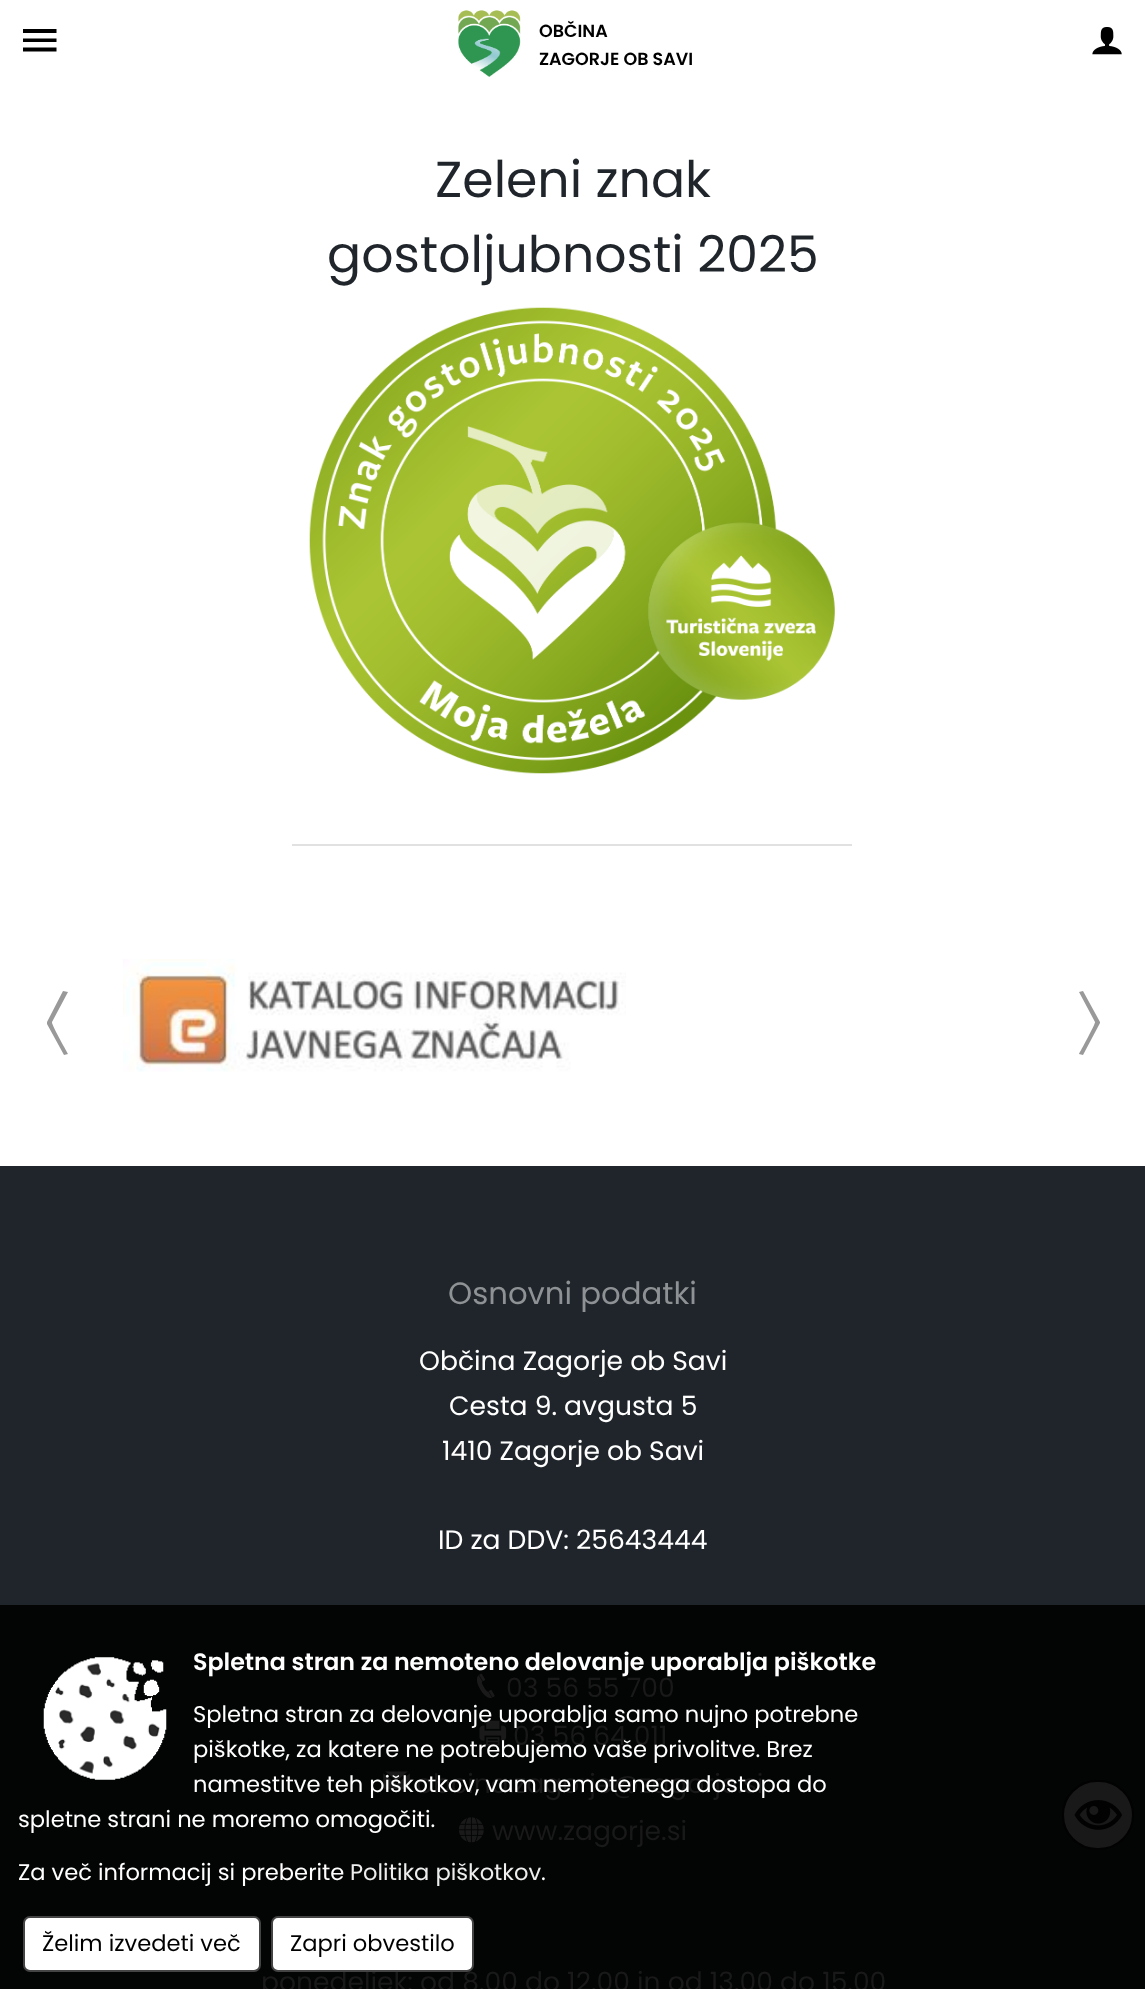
<!DOCTYPE html>
<meta charset="utf-8">
<style>body { margin: 0 } canvas { display: block }</style>
<canvas id="canvas" width="1145" height="1989"></canvas>
<img id="img1" src="img_01.png" hidden>
<img id="img2" src="img_02.png" hidden>
<img id="img3" src="img_03.png" hidden>
<img id="img4" src="img_04.png" hidden>
<img id="img5" src="img_05.png" hidden>
<img id="img6" src="img_06.png" hidden>
<img id="img7" src="img_07.png" hidden>
<img id="img8" src="img_08.png" hidden>
<img id="img9" src="img_09.png" hidden>
<img id="img10" src="img_10.png" hidden>
<script>
window.onload = function () {
	const canvas = document.getElementById("canvas");
	const ctx = canvas.getContext("2d");
	ctx.miterLimit = 4;
	ctx.fontKerning = "normal";
	function txt(s, x, y) {
		ctx.fillText(s, x, y);
	}
	function fill(x, y, w, h) {
		ctx.fillRect(x, y, w, h);
	}
	function img(id, x, y, w, h) {
		ctx.drawImage(document.getElementById(id), x, y, w, h);
	}

	ctx.fillStyle = "#FFFFFF";
	fill(0, 0, 1145, 1989);
	img("img1", 458, 10, 63, 67);
	ctx.fillStyle = "#000000";
	ctx.beginPath();
	ctx.moveTo(23, 29);
	ctx.lineTo(56.5, 29);
	ctx.lineTo(56.5, 33);
	ctx.lineTo(23, 33);
	ctx.closePath();
	ctx.moveTo(23, 42);
	ctx.lineTo(23, 38.5);
	ctx.lineTo(56.5, 38.5);
	ctx.lineTo(56.5, 42);
	ctx.closePath();
	ctx.moveTo(23, 51.5);
	ctx.lineTo(23, 47.5);
	ctx.lineTo(56.5, 47.5);
	ctx.lineTo(56.5, 51.5);
	ctx.closePath();
	ctx.fill();
	img("img2", 1092, 27, 30, 28);
	ctx.fillStyle = "#E1E1E1";
	fill(292, 844, 560, 2);
	img("img3", 309, 307, 526, 467);
	ctx.fillStyle = "#999999";
	ctx.beginPath();
	ctx.moveTo(68, 992);
	ctx.lineTo(63, 991);
	ctx.lineTo(47, 1022);
	ctx.lineTo(47, 1024);
	ctx.lineTo(64, 1055);
	ctx.lineTo(68, 1054);
	ctx.bezierCurveTo(66, 1050, 51, 1024, 52, 1022);
	ctx.closePath();
	ctx.fill();
	img("img4", 123, 959, 503, 113);
	ctx.beginPath();
	ctx.moveTo(1083, 991);
	ctx.lineTo(1079, 992);
	ctx.lineTo(1095, 1022);
	ctx.bezierCurveTo(1096, 1023, 1080, 1052, 1079, 1054);
	ctx.lineTo(1083, 1055);
	ctx.lineTo(1100, 1023);
	ctx.lineTo(1100, 1022);
	ctx.closePath();
	ctx.fill();
	ctx.fillStyle = "#1F252B";
	fill(0, 1166, 1145, 439);
	ctx.fillStyle = "#030404";
	fill(0, 1605, 1145, 384);
	img("img5", 476, 1673, 19, 26);
	img("img6", 479, 1720, 28, 26);
	img("img7", 383, 1771, 27, 19);
	img("img8", 458, 1817, 26, 26);
	img("img9", 43, 1657, 124, 123);
	ctx.fillStyle = "#FFFFFF";
	ctx.beginPath();
	ctx.roundRect(24, 1917, 236, 54, 6);
	ctx.fill();
	ctx.strokeStyle = "#444444";
	ctx.lineWidth = 2;
	ctx.stroke();
	ctx.fillStyle = "#191919";
	ctx.beginPath();
	ctx.roundRect(1063, 1781, 70, 68, 34);
	ctx.fill();
	ctx.strokeStyle = "#020202";
	ctx.stroke();
	img("img10", 1074, 1800, 48, 30);
	ctx.font = "600 17.5px Poppins";
	ctx.fillStyle = "#000000";
	txt("OBČINA", 539, 37);
	txt("ZAGORJE OB SAVI", 539, 65);
	ctx.font = "50.5px Poppins";
	ctx.fillStyle = "#1F252B";
	txt("Zeleni znak", 435, 197);
	txt("gostoljubnosti 2025", 327, 272);
	ctx.font = "30.75px Poppins";
	ctx.fillStyle = "#8F9295";
	txt("Osnovni podatki", 448, 1304);
	ctx.font = "26.6px Poppins";
	ctx.fillStyle = "#FFFFFF";
	txt("Občina Zagorje ob Savi", 419, 1370);
	txt("Cesta 9. avgusta 5", 449, 1415);
	txt("1410 Zagorje ob Savi", 442, 1460);
	txt("ID za DDV: 25643444", 438, 1549);
	ctx.fillStyle = "#191919";
	txt("03 56 55 700", 506, 1697);
	txt("03 56 64 011", 513, 1745);
	txt("obcina.zagorje@zagorje.si", 416, 1793);
	txt("www.zagorje.si", 492, 1840);
	txt("ponedeljek: od 8.00 do 12.00 in od 13.00 do 15.00", 261, 1991);
	ctx.font = "600 23.75px Poppins";
	ctx.fillStyle = "#FFFFFF";
	txt("Spletna stran za nemoteno delovanje uporablja piškotke", 193, 1670);
	ctx.font = "22.6px Poppins";
	txt("Spletna stran za delovanje uporablja samo nujno potrebne", 193, 1722);
	txt("piškotke, za katere ne potrebujemo vaše privolitve. Brez", 193, 1757);
	txt("namestitve teh piškotkov, vam nemotenega dostopa do", 193, 1792);
	txt("spletne strani ne moremo omogočiti.", 18, 1827);
	txt("Za več informacij si preberite", 18, 1880);
	ctx.fillStyle = "#EEEEEE";
	txt("Politika piškotkov", 350, 1880);
	ctx.fillStyle = "#FFFFFF";
	txt(".", 541, 1880);
	ctx.fillStyle = "#000000";
	txt("Želim izvedeti več", 42, 1951);
	ctx.fillStyle = "#FFFFFF";
	ctx.beginPath();
	ctx.roundRect(272, 1917, 201, 54, 6);
	ctx.fill();
	ctx.strokeStyle = "#444444";
	ctx.stroke();
	ctx.fillStyle = "#000000";
	txt("Zapri obvestilo", 290, 1951);
};
</script>
